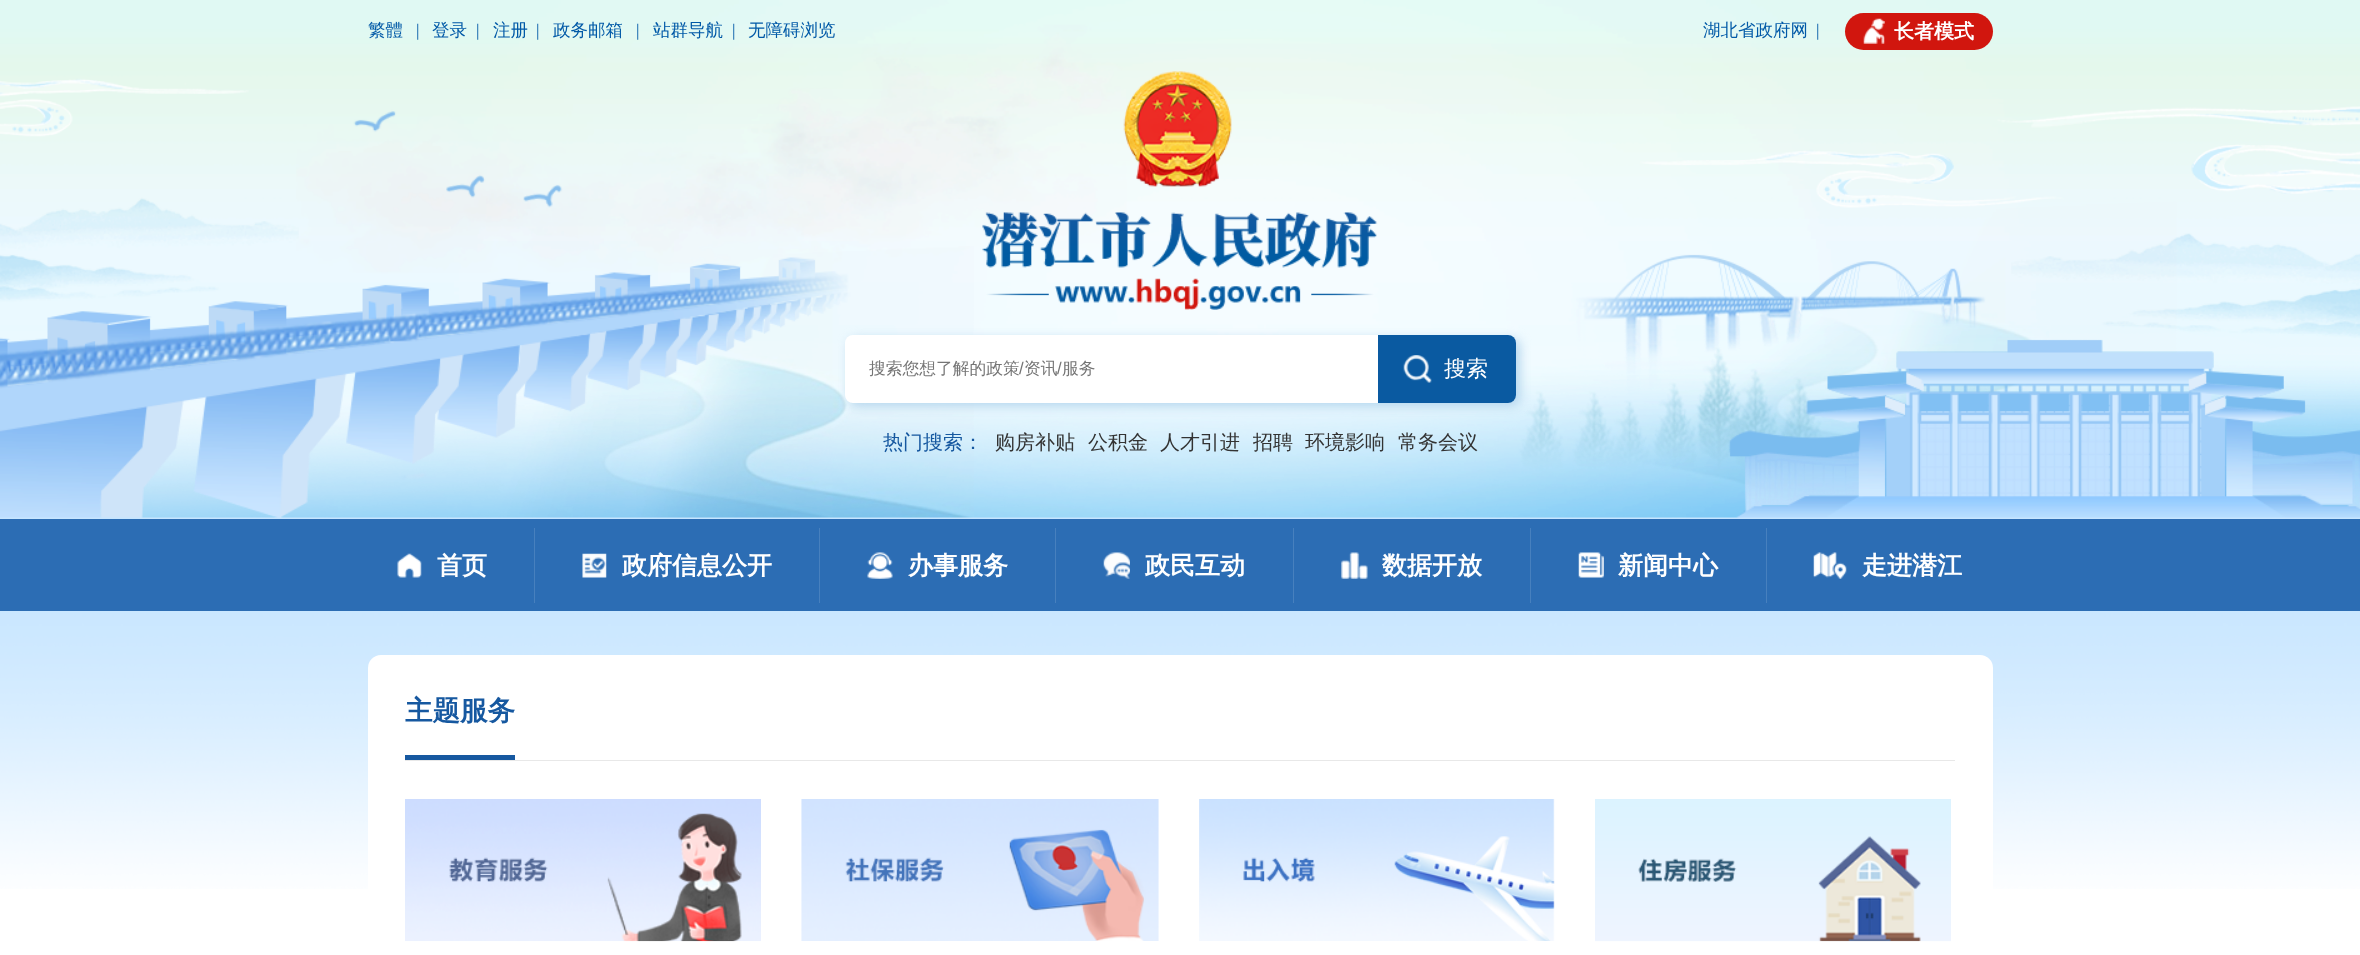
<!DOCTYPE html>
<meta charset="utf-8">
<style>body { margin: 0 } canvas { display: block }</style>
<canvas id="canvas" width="2360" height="955"></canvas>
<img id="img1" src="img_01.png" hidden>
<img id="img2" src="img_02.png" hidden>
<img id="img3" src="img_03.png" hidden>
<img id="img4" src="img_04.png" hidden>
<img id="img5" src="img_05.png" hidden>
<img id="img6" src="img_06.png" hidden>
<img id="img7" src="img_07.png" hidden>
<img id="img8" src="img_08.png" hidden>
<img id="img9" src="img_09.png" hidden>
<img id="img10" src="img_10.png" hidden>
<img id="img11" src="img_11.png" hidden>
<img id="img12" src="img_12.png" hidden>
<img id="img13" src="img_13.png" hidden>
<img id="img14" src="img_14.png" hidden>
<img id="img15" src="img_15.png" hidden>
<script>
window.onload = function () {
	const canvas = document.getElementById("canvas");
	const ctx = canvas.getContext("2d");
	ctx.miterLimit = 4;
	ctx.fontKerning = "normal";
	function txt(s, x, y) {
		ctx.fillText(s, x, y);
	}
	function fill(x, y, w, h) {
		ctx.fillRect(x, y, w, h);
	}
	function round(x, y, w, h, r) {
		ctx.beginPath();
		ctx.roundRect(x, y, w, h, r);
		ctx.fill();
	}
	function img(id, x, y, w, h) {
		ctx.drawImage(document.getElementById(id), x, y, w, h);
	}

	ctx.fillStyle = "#FFFFFF";
	fill(0, 0, 2360, 955);
	img("img1", 0, 0, 2360, 889);
	ctx.fillStyle = "#D1160E";
	round(1845, 13, 148, 37, 18.5);
	img("img2", 1863, 18, 22, 26);
	img("img3", 982, 71, 396, 239);
	ctx.fillStyle = "#B3D5ED";
	ctx.filter = "blur(5.5px)";
	ctx.beginPath();
	ctx.roundRect(849, 339, 671, 67, 8);
	ctx.fill();
	ctx.filter = "none";
	ctx.fillStyle = "#FFFFFF";
	round(845, 335, 671, 68, 8);
	ctx.fillStyle = "#0A5AA1";
	ctx.beginPath();
	ctx.roundRect(1378, 335, 138, 68, [0, 8, 8, 0]);
	ctx.fill();
	img("img4", 1403, 355, 29, 28);
	ctx.fillStyle = "#2C6DB4";
	fill(0, 519, 2360, 92);
	img("img5", 397, 553, 25, 25);
	ctx.fillStyle = "#4780BE";
	fill(534, 528, 1, 75);
	img("img6", 582, 553, 25, 25);
	fill(819, 528, 1, 75);
	img("img7", 867, 552, 26, 27);
	fill(1055, 528, 1, 75);
	img("img8", 1103, 552, 27, 27);
	fill(1293, 528, 1, 75);
	img("img9", 1341, 552, 27, 27);
	fill(1530, 528, 1, 75);
	img("img10", 1578, 552, 26, 26);
	fill(1766, 528, 1, 75);
	img("img11", 1813, 552, 34, 27);
	ctx.fillStyle = "#FFFFFF";
	round(368, 655, 1625, 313, 13);
	ctx.fillStyle = "#E8E8E8";
	fill(405, 760, 1550, 1);
	ctx.fillStyle = "#1658A0";
	fill(405, 755, 110, 5);
	img("img12", 405, 799, 356, 143);
	img("img13", 801, 799, 358, 142);
	img("img14", 1199, 799, 356, 142);
	img("img15", 1595, 799, 356, 143);
	ctx.font = "500 17.5px WenQuanYi Zen Hei";
	ctx.fillStyle = "#0059A7";
	txt("繁體", 368, 36);
	ctx.font = "17.5px Liberation Serif";
	txt("|", 416, 36);
	ctx.font = "500 17.5px WenQuanYi Zen Hei";
	txt("登录", 432, 36);
	ctx.font = "17.5px Liberation Serif";
	txt("|", 476, 36);
	ctx.font = "500 17.5px WenQuanYi Zen Hei";
	txt("注册", 493, 36);
	ctx.font = "17.5px Liberation Serif";
	txt("|", 536, 36);
	ctx.font = "500 17.5px WenQuanYi Zen Hei";
	txt("政务邮箱", 553, 36);
	ctx.font = "17.5px Liberation Serif";
	txt("|", 636, 36);
	ctx.font = "500 17.5px WenQuanYi Zen Hei";
	txt("站群导航", 653, 36);
	ctx.font = "17.5px Liberation Serif";
	txt("|", 732, 36);
	ctx.font = "500 17.5px WenQuanYi Zen Hei";
	txt("无障碍浏览", 748, 36);
	txt("湖北省政府网", 1703, 36);
	ctx.font = "17.5px Liberation Serif";
	txt("|", 1816, 36);
	ctx.font = "bold 20px WenQuanYi Zen Hei";
	ctx.fillStyle = "#FFFFFF";
	txt("长者模式", 1894, 38);
	ctx.font = "500 16.75px WenQuanYi Zen Hei";
	ctx.fillStyle = "#757575";
	txt("搜索您想了解的政策", 869, 374);
	ctx.font = "16.75px Liberation Sans";
	txt("/", 1019, 374);
	ctx.font = "500 16.75px WenQuanYi Zen Hei";
	txt("资讯", 1024, 374);
	ctx.font = "16.75px Liberation Sans";
	txt("/", 1057, 374);
	ctx.font = "500 16.75px WenQuanYi Zen Hei";
	txt("服务", 1062, 374);
	ctx.font = "500 22px WenQuanYi Zen Hei";
	ctx.fillStyle = "#FFFFFF";
	txt("搜索", 1444, 376);
	ctx.font = "500 20px WenQuanYi Zen Hei";
	ctx.fillStyle = "#1658A0";
	txt("热门搜索：", 883, 449);
	ctx.fillStyle = "#333333";
	txt("购房补贴", 995, 449);
	txt("公积金", 1088, 449);
	txt("人才引进", 1160, 449);
	txt("招聘", 1253, 449);
	txt("环境影响", 1305, 449);
	txt("常务会议", 1398, 449);
	ctx.font = "bold 25px WenQuanYi Zen Hei";
	ctx.fillStyle = "#FFFFFF";
	txt("首页", 437, 574);
	txt("政府信息公开", 622, 574);
	txt("办事服务", 908, 574);
	txt("政民互动", 1145, 574);
	txt("数据开放", 1382, 574);
	txt("新闻中心", 1618, 574);
	txt("走进潜江", 1862, 574);
	ctx.font = "bold 27.5px WenQuanYi Zen Hei";
	ctx.fillStyle = "#1658A0";
	txt("主题服务", 405, 720);
};
</script>
